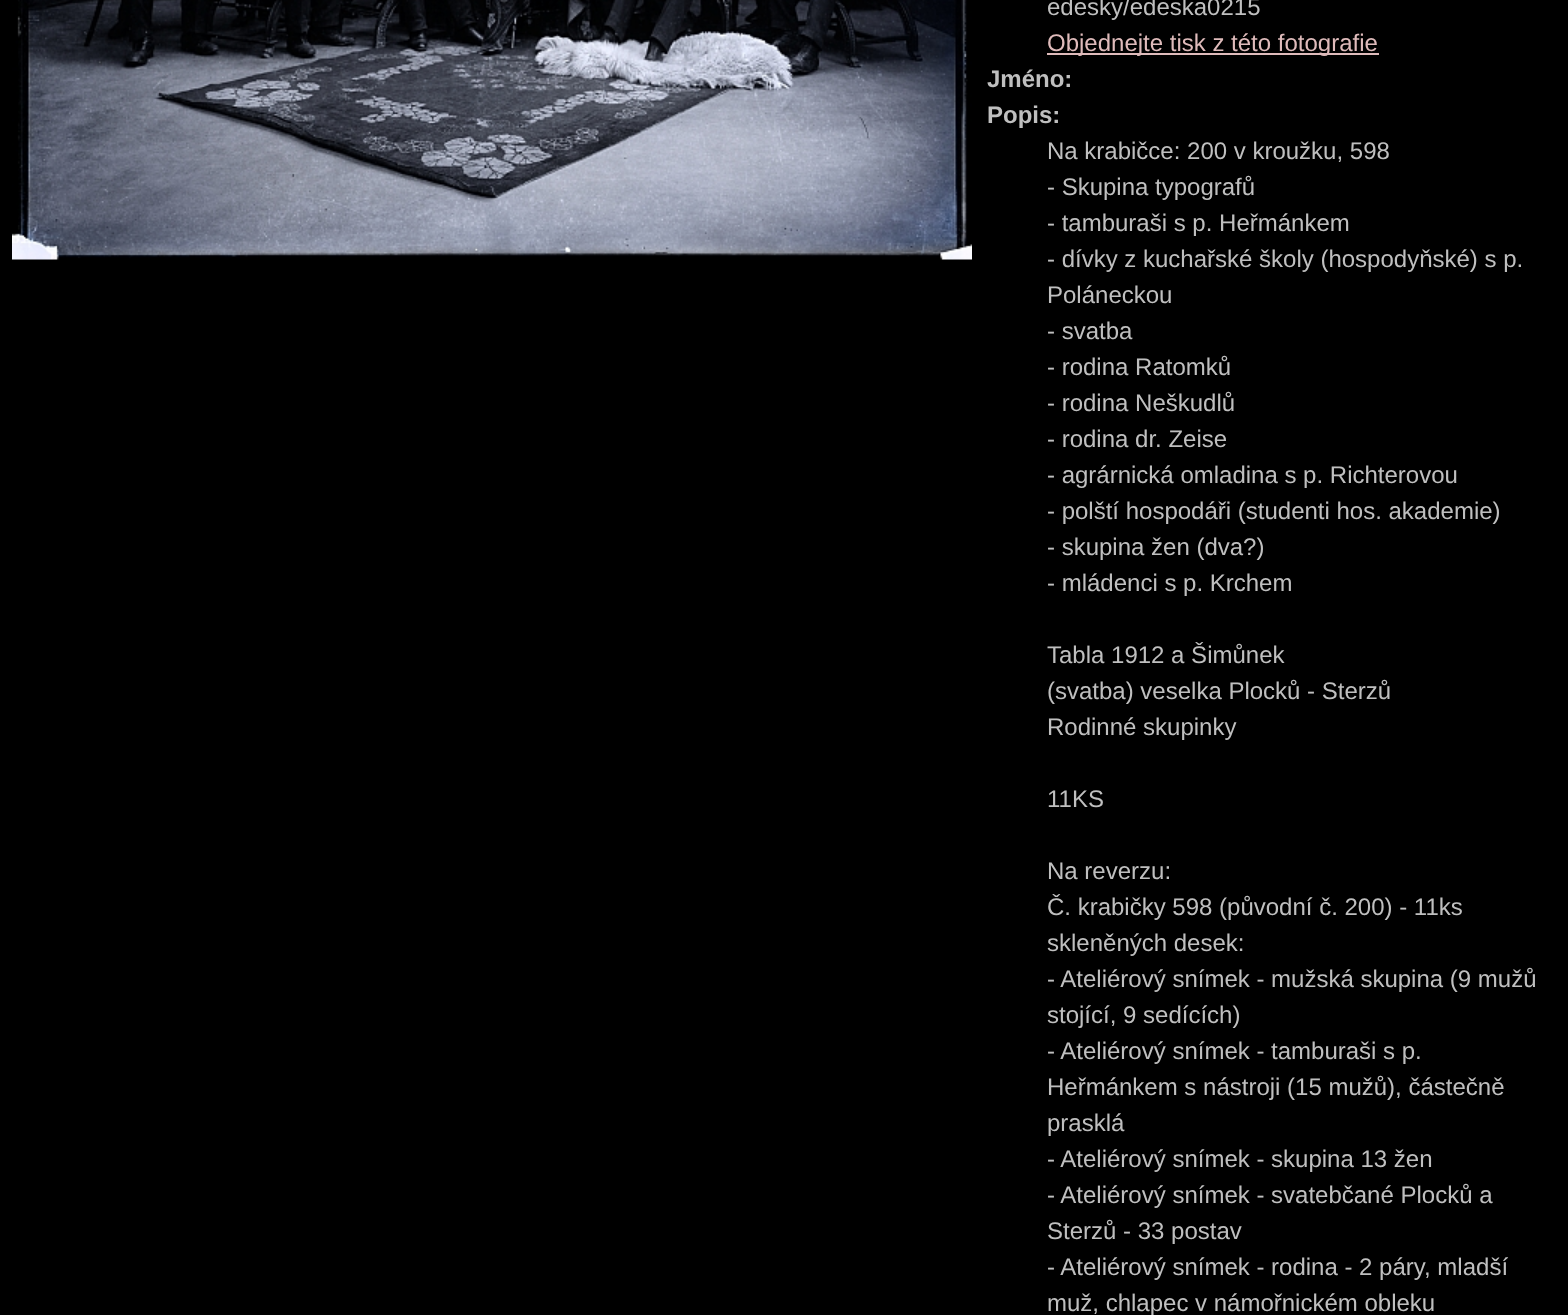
<!DOCTYPE html>
<meta charset="utf-8">
<style>body { margin: 0 } canvas { display: block }</style>
<canvas id="canvas" width="1568" height="1315"></canvas>
<img id="img1" src="img_01.png" hidden>
<script>
window.onload = function () {
	const canvas = document.getElementById("canvas");
	const ctx = canvas.getContext("2d");
	ctx.miterLimit = 4;
	ctx.fontKerning = "normal";
	function txt(s, x, y) {
		ctx.fillText(s, x, y);
	}
	function fill(x, y, w, h) {
		ctx.fillRect(x, y, w, h);
	}
	function img(id, x, y, w, h) {
		ctx.drawImage(document.getElementById(id), x, y, w, h);
	}

	ctx.fillStyle = "#000000";
	fill(0, 0, 1568, 1315);
	img("img1", 12, 0, 960, 260);
	ctx.fillStyle = "#DFBBBB";
	fill(1047, 53, 332, 2);
	ctx.font = "24px Liberation Sans";
	ctx.fillStyle = "#BFBFBF";
	txt("edesky/edeska0215", 1047, 15);
	ctx.fillStyle = "#DFBBBB";
	txt("Objednejte tisk z této fotografie", 1047, 51);
	ctx.font = "bold 24px Liberation Sans";
	ctx.fillStyle = "#BFBFBF";
	txt("Jméno:", 987, 87);
	txt("Popis:", 987, 123);
	ctx.font = "24px Liberation Sans";
	txt("Na krabičce: 200 v kroužku, 598", 1047, 159);
	txt("- Skupina typografů", 1047, 195);
	txt("- tamburaši s p. Heřmánkem", 1047, 231);
	txt("- dívky z kuchařské školy (hospodyňské) s p.", 1047, 267);
	txt("Poláneckou", 1047, 303);
	txt("- svatba", 1047, 339);
	txt("- rodina Ratomků", 1047, 375);
	txt("- rodina Neškudlů", 1047, 411);
	txt("- rodina dr. Zeise", 1047, 447);
	txt("- agrárnická omladina s p. Richterovou", 1047, 483);
	txt("- polští hospodáři (studenti hos. akademie)", 1047, 519);
	txt("- skupina žen (dva?)", 1047, 555);
	txt("- mládenci s p. Krchem", 1047, 591);
	txt("Tabla 1912 a Šimůnek", 1047, 663);
	txt("(svatba) veselka Plocků - Sterzů", 1047, 699);
	txt("Rodinné skupinky", 1047, 735);
	txt("11KS", 1047, 807);
	txt("Na reverzu:", 1047, 879);
	txt("Č. krabičky 598 (původní č. 200) - 11ks", 1047, 915);
	txt("skleněných desek:", 1047, 951);
	txt("- Ateliérový snímek - mužská skupina (9 mužů", 1047, 987);
	txt("stojící, 9 sedících)", 1047, 1023);
	txt("- Ateliérový snímek - tamburaši s p.", 1047, 1059);
	txt("Heřmánkem s nástroji (15 mužů), částečně", 1047, 1095);
	txt("prasklá", 1047, 1131);
	txt("- Ateliérový snímek - skupina 13 žen", 1047, 1167);
	txt("- Ateliérový snímek - svatebčané Plocků a", 1047, 1203);
	txt("Sterzů - 33 postav", 1047, 1239);
	txt("- Ateliérový snímek - rodina - 2 páry, mladší", 1047, 1275);
	txt("muž, chlapec v námořnickém obleku", 1047, 1311);
};
</script>
